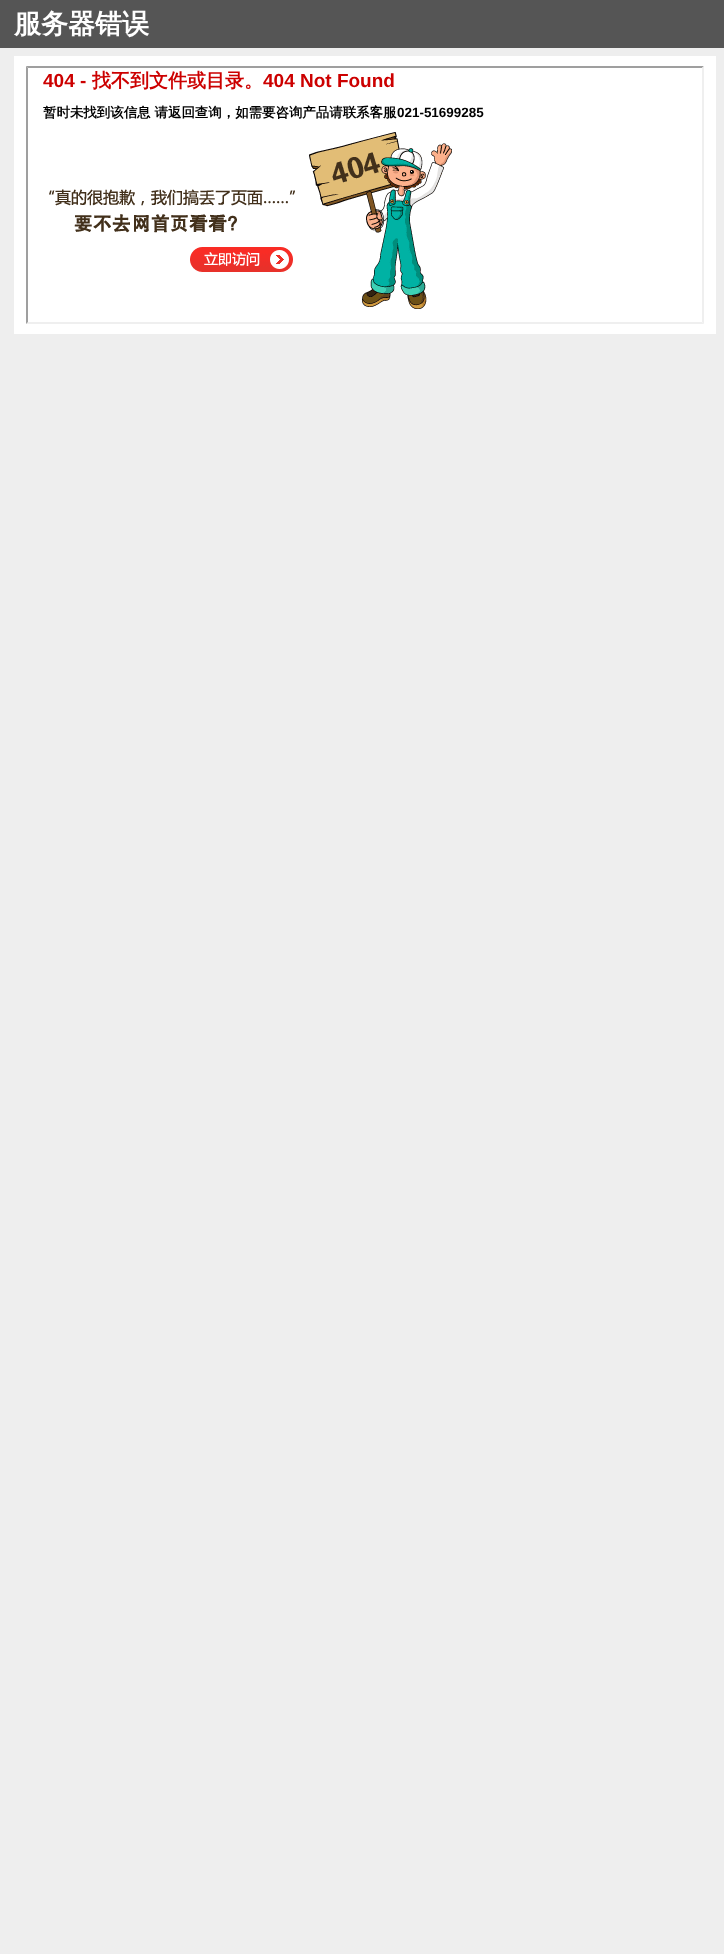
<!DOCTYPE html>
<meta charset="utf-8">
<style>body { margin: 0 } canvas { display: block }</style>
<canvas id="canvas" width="724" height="1954"></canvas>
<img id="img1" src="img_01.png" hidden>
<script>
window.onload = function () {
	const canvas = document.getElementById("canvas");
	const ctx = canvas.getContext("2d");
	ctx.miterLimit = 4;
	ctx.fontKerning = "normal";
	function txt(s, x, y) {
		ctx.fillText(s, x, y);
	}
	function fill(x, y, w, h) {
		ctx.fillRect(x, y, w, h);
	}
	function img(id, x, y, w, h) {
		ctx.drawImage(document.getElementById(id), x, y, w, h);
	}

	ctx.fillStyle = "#EEEEEE";
	fill(0, 0, 724, 1954);
	ctx.fillStyle = "#555555";
	fill(0, 0, 724, 48);
	ctx.fillStyle = "#FFFFFF";
	fill(14, 56, 702, 278);
	ctx.fillStyle = "#9F9F9F";
	ctx.beginPath();
	ctx.moveTo(26, 66);
	ctx.lineTo(704, 66);
	ctx.lineTo(702, 68);
	ctx.lineTo(28, 68);
	ctx.closePath();
	ctx.fill();
	ctx.fillStyle = "#EFEFEF";
	ctx.beginPath();
	ctx.moveTo(704, 66);
	ctx.lineTo(704, 324);
	ctx.lineTo(702, 322);
	ctx.lineTo(702, 68);
	ctx.closePath();
	ctx.fill();
	ctx.beginPath();
	ctx.moveTo(704, 324);
	ctx.lineTo(26, 324);
	ctx.lineTo(28, 322);
	ctx.lineTo(702, 322);
	ctx.closePath();
	ctx.fill();
	ctx.fillStyle = "#9F9F9F";
	ctx.beginPath();
	ctx.moveTo(26, 324);
	ctx.lineTo(26, 66);
	ctx.lineTo(28, 68);
	ctx.lineTo(28, 322);
	ctx.closePath();
	ctx.fill();
	img("img1", 49, 132, 403, 177);
	ctx.font = "bold 27px WenQuanYi Zen Hei";
	ctx.fillStyle = "#FFFFFF";
	txt("服务器错误", 14, 33);
	ctx.font = "bold 19px Liberation Sans";
	ctx.fillStyle = "#CC0000";
	txt("404 -", 43, 87);
	ctx.font = "bold 19px WenQuanYi Zen Hei";
	txt("找不到文件或目录。", 92, 87);
	ctx.font = "bold 19px Liberation Sans";
	txt("404 Not Found", 263, 87);
	ctx.font = "bold 13.45px WenQuanYi Zen Hei";
	ctx.fillStyle = "#000000";
	txt("暂时未找到该信息 请返回查询，如需要咨询产品请联系客服", 43, 117);
	ctx.font = "bold 13.45px Liberation Sans";
	txt("021-51699285", 397, 117);
};
</script>
